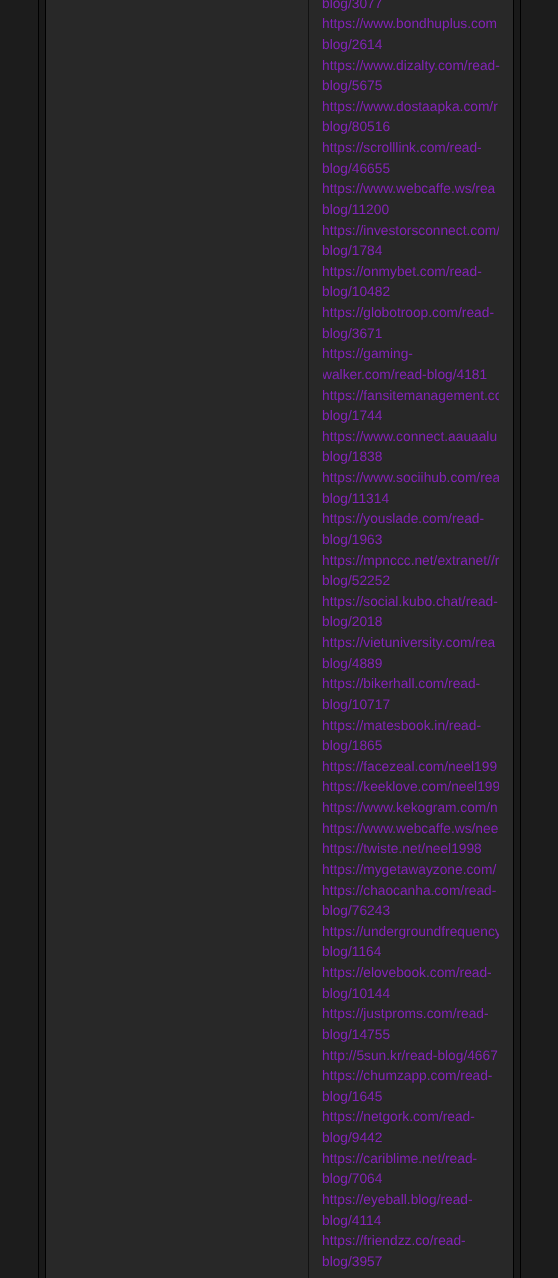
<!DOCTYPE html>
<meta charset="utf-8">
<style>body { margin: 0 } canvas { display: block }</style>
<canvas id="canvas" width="558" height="1278"></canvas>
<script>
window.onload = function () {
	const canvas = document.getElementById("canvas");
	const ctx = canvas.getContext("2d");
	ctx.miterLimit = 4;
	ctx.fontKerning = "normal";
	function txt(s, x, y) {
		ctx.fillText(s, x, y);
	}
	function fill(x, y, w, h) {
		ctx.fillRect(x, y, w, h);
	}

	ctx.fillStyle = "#1C1C1C";
	fill(0, 0, 558, 1278);
	ctx.fillStyle = "#191919";
	fill(39, 0, 481, 1278);
	ctx.fillStyle = "#000000";
	fill(520, 0, 1, 1278);
	fill(38, 0, 1, 1278);
	ctx.fillStyle = "#282828";
	fill(46, 0, 467, 1278);
	ctx.fillStyle = "#000000";
	fill(513, 0, 1, 1278);
	fill(45, 0, 1, 1278);
	ctx.fillStyle = "#121212";
	fill(308, 0, 1, 1278);
	ctx.font = "13.75px Liberation Sans";
	ctx.fillStyle = "#8323B6";
	txt("blog/3077", 322, 8);
	txt("https://www.bondhuplus.com", 322, 28);
	txt("blog/2614", 322, 49);
	txt("https://www.dizalty.com/read-", 322, 70);
	txt("blog/5675", 322, 90);
	txt("https://www.dostaapka.com/r", 322, 111);
	txt("blog/80516", 322, 131);
	txt("https://scrolllink.com/read-", 322, 152);
	txt("blog/46655", 322, 173);
	txt("https://www.webcaffe.ws/rea", 322, 193);
	txt("blog/11200", 322, 214);
	ctx.save();
	ctx.beginPath();
	ctx.rect(323, 0, 176, 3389);
	ctx.clip();
	txt("https://investorsconnect.com/", 322, 235);
	ctx.restore();
	txt("blog/1784", 322, 255);
	txt("https://onmybet.com/read-", 322, 276);
	txt("blog/10482", 322, 296);
	txt("https://globotroop.com/read-", 322, 317);
	txt("blog/3671", 322, 338);
	txt("https://gaming-", 322, 358);
	ctx.save();
	ctx.beginPath();
	ctx.rect(323, 0, 176, 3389);
	ctx.clip();
	txt("walker.com/read-blog/4181", 322, 379);
	txt("https://fansitemanagement.co", 322, 400);
	ctx.restore();
	txt("blog/1744", 322, 420);
	txt("https://www.connect.aauaalu", 322, 441);
	txt("blog/1838", 322, 461);
	ctx.save();
	ctx.beginPath();
	ctx.rect(323, 0, 176, 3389);
	ctx.clip();
	txt("https://www.sociihub.com/rea", 322, 482);
	ctx.restore();
	txt("blog/11314", 322, 503);
	txt("https://youslade.com/read-", 322, 523);
	txt("blog/1963", 322, 544);
	txt("https://mpnccc.net/extranet//r", 322, 565);
	txt("blog/52252", 322, 585);
	txt("https://social.kubo.chat/read-", 322, 606);
	txt("blog/2018", 322, 626);
	txt("https://vietuniversity.com/rea", 322, 647);
	txt("blog/4889", 322, 668);
	txt("https://bikerhall.com/read-", 322, 688);
	txt("blog/10717", 322, 709);
	txt("https://matesbook.in/read-", 322, 730);
	txt("blog/1865", 322, 750);
	txt("https://facezeal.com/neel199", 322, 771);
	ctx.save();
	ctx.beginPath();
	ctx.rect(323, 0, 176, 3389);
	ctx.clip();
	txt("https://keeklove.com/neel199", 322, 791);
	ctx.restore();
	txt("https://www.kekogram.com/n", 322, 812);
	txt("https://www.webcaffe.ws/nee", 322, 833);
	txt("https://twiste.net/neel1998", 322, 853);
	txt("https://mygetawayzone.com/", 322, 874);
	txt("https://chaocanha.com/read-", 322, 895);
	txt("blog/76243", 322, 915);
	ctx.save();
	ctx.beginPath();
	ctx.rect(323, 0, 176, 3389);
	ctx.clip();
	txt("https://undergroundfrequency", 322, 936);
	ctx.restore();
	txt("blog/1164", 322, 956);
	txt("https://elovebook.com/read-", 322, 977);
	txt("blog/10144", 322, 998);
	txt("https://justproms.com/read-", 322, 1018);
	txt("blog/14755", 322, 1039);
	txt("http://5sun.kr/read-blog/4667", 322, 1060);
	txt("https://chumzapp.com/read-", 322, 1080);
	txt("blog/1645", 322, 1101);
	txt("https://netgork.com/read-", 322, 1121);
	txt("blog/9442", 322, 1142);
	txt("https://cariblime.net/read-", 322, 1163);
	txt("blog/7064", 322, 1183);
	txt("https://eyeball.blog/read-", 322, 1204);
	txt("blog/4114", 322, 1225);
	txt("https://friendzz.co/read-", 322, 1245);
	txt("blog/3957", 322, 1266);
};
</script>
